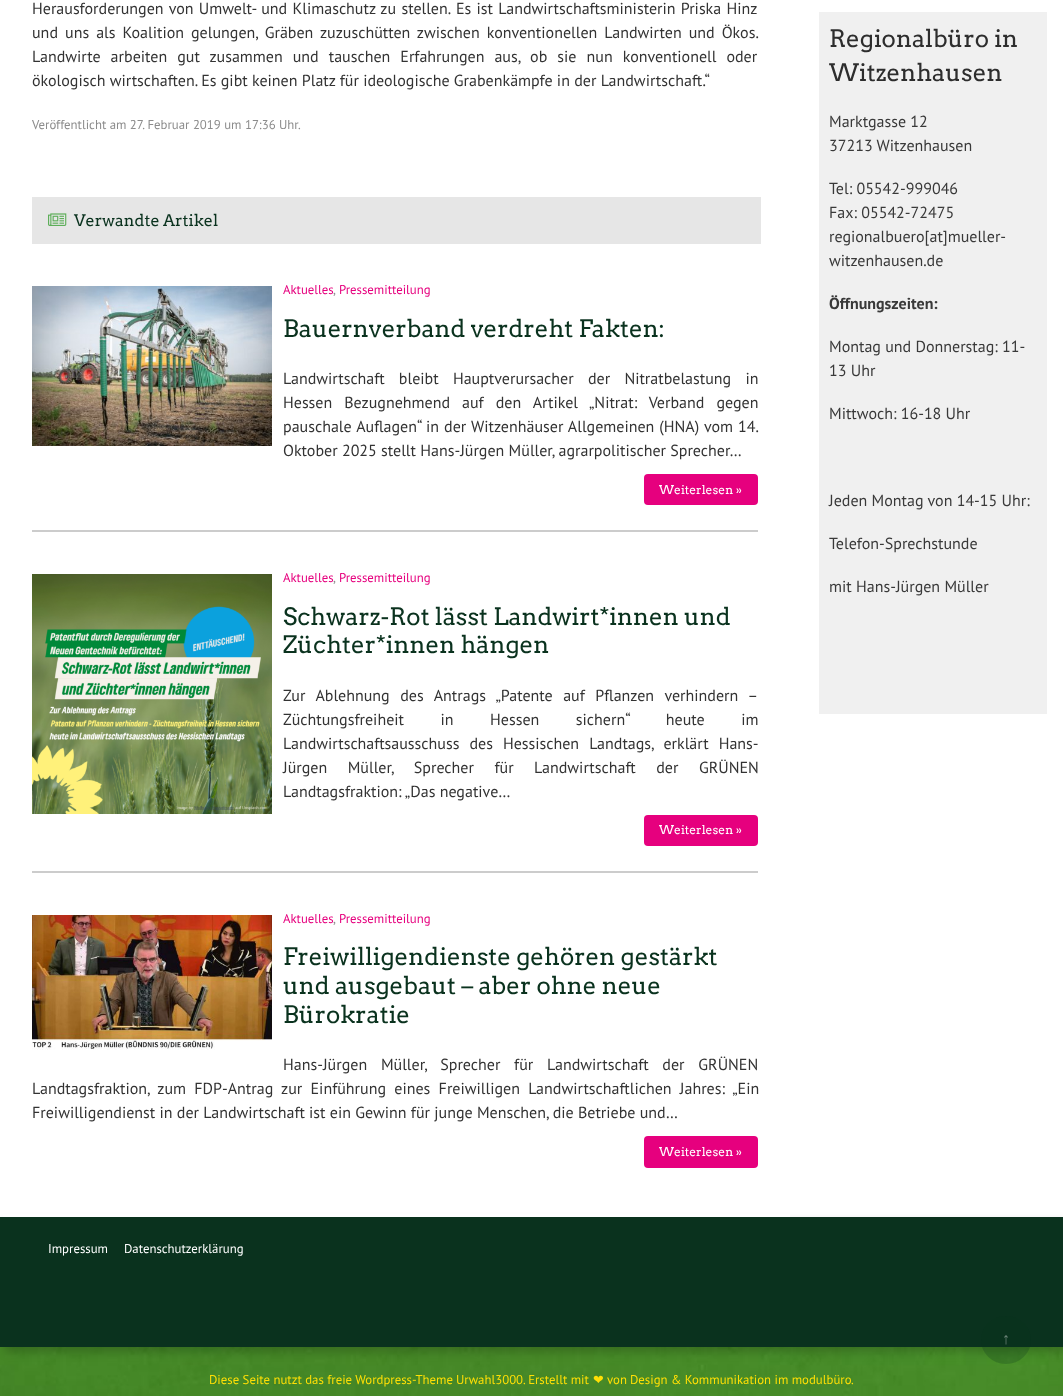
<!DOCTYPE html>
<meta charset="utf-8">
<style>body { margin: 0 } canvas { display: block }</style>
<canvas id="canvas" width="1063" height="1396"></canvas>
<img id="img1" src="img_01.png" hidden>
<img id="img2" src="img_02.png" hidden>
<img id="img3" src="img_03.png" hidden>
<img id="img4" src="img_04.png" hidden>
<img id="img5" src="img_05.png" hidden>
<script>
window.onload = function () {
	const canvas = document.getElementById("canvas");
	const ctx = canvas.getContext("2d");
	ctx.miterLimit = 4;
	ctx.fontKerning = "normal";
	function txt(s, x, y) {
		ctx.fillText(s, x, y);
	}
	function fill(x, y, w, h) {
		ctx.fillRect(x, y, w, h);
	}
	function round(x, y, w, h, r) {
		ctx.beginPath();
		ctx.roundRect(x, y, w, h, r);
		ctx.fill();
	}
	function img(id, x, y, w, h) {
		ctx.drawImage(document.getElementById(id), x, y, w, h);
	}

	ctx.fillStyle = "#FFFFFF";
	fill(0, 0, 1063, 1396);
	img("img1", 0, 1347, 1063, 49);
	ctx.fillStyle = "rgba(0, 0, 0, 0.2)";
	ctx.filter = "blur(5px)";
	ctx.beginPath();
	ctx.rect(5, 1222, 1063, 130);
	ctx.fill();
	ctx.filter = "none";
	ctx.fillStyle = "#FFFFFF";
	fill(3, 1214, 787, 3);
	ctx.fillStyle = "#E6E6E6";
	fill(32, 197, 729, 47);
	img("img2", 48, 213, 19, 13);
	ctx.fillStyle = "#CCCCCC";
	fill(32, 530, 726, 2);
	img("img3", 32, 286, 240, 160);
	ctx.fillStyle = "#E6007E";
	round(644, 474, 114, 31, 4);
	ctx.fillStyle = "#CCCCCC";
	fill(32, 871, 726, 2);
	img("img4", 32, 574, 240, 240);
	ctx.fillStyle = "#E6007E";
	round(644, 815, 114, 31, 4);
	img("img5", 32, 915, 240, 135);
	round(644, 1136, 114, 32, 4);
	ctx.fillStyle = "#F0F0F0";
	fill(819, 12, 228, 702);
	ctx.fillStyle = "#0A321E";
	fill(0, 1217, 1063, 130);
	ctx.fillStyle = "rgba(10, 50, 30, 0.24)";
	ctx.beginPath();
	ctx.ellipse(1006, 1340, 25, 24, 0, 0, Math.PI * 2);
	ctx.fill();
	ctx.wordSpacing = "1px";
	ctx.font = "16px PT Sans";
	ctx.fillStyle = "#333333";
	txt("Herausforderungen von Umwelt- und Klimaschutz zu stellen.", 32, 14);
	txt("Es ist Landwirtschaftsministerin Priska Hinz", 456, 14);
	ctx.wordSpacing = "2.75px";
	txt("und uns als Koalition gelungen, Gräben zuzuschütten zwischen konventionellen Landwirten und Ökos.", 32, 38);
	ctx.wordSpacing = "5.75px";
	txt("Landwirte arbeiten gut zusammen und tauschen Erfahrungen aus, ob sie nun konventionell oder", 32, 62);
	ctx.wordSpacing = "0px";
	txt("ökologisch wirtschaften. Es gibt keinen Platz für ideologische Grabenkämpfe in der Landwirtschaft.“", 32, 86);
	ctx.font = "12.8px PT Sans";
	ctx.fillStyle = "#8C8C8C";
	txt("Veröffentlicht am 27. Februar 2019 um 17:36 Uhr.", 32, 129);
	ctx.font = "16px Arvo";
	ctx.fillStyle = "#0A321E";
	txt("Verwandte Artikel", 74, 226);
	ctx.font = "12.8px PT Sans";
	ctx.fillStyle = "#E6007E";
	txt("Aktuelles", 283, 294);
	ctx.fillStyle = "#8C8C8C";
	txt(",", 333, 294);
	ctx.fillStyle = "#E6007E";
	txt("Pressemitteilung", 339, 294);
	ctx.font = "24px Arvo";
	ctx.fillStyle = "#0A321E";
	txt("Bauernverband verdreht Fakten:", 283, 337);
	ctx.wordSpacing = "10px";
	ctx.font = "16px PT Sans";
	ctx.fillStyle = "#333333";
	txt("Landwirtschaft bleibt Hauptverursacher der Nitratbelastung in", 283, 384);
	ctx.wordSpacing = "7.75px";
	txt("Hessen Bezugnehmend auf den Artikel „Nitrat: Verband gegen", 283, 408);
	ctx.wordSpacing = "0.75px";
	txt("pauschale Auflagen“ in der Witzenhäuser Allgemeinen (HNA) vom 14.", 283, 432);
	ctx.wordSpacing = "0px";
	txt("Oktober 2025 stellt Hans-Jürgen Müller, agrarpolitischer Sprecher…", 283, 456);
	ctx.font = "12px Arvo";
	ctx.fillStyle = "#FFFFFF";
	txt("Weiterlesen »", 659, 494);
	ctx.font = "12.8px PT Sans";
	ctx.fillStyle = "#E6007E";
	txt("Aktuelles", 283, 582);
	ctx.fillStyle = "#8C8C8C";
	txt(",", 333, 582);
	ctx.fillStyle = "#E6007E";
	txt("Pressemitteilung", 339, 582);
	ctx.font = "24px Arvo";
	ctx.fillStyle = "#0A321E";
	txt("Schwarz-Rot lässt Landwirt*innen und", 283, 625);
	txt("Züchter*innen hängen", 283, 653);
	ctx.wordSpacing = "6.25px";
	ctx.font = "16px PT Sans";
	ctx.fillStyle = "#333333";
	txt("Zur Ablehnung des Antrags „Patente auf Pflanzen verhindern –", 283, 701);
	ctx.wordSpacing = "32.25px";
	txt("Züchtungsfreiheit in Hessen sichern“ heute im", 283, 725);
	ctx.wordSpacing = "5.75px";
	txt("Landwirtschaftsausschuss des Hessischen Landtags, erklärt Hans-", 283, 749);
	ctx.wordSpacing = "16.25px";
	txt("Jürgen Müller, Sprecher für Landwirtschaft der GRÜNEN", 283, 773);
	ctx.wordSpacing = "0px";
	txt("Landtagsfraktion: „Das negative…", 283, 797);
	ctx.font = "12px Arvo";
	ctx.fillStyle = "#FFFFFF";
	txt("Weiterlesen »", 659, 834);
	ctx.font = "12.8px PT Sans";
	ctx.fillStyle = "#E6007E";
	txt("Aktuelles", 283, 923);
	ctx.fillStyle = "#8C8C8C";
	txt(",", 333, 923);
	ctx.fillStyle = "#E6007E";
	txt("Pressemitteilung", 339, 923);
	ctx.font = "24px Arvo";
	ctx.fillStyle = "#0A321E";
	txt("Freiwilligendienste gehören gestärkt", 283, 965);
	txt("und ausgebaut – aber ohne neue", 283, 994);
	txt("Bürokratie", 283, 1023);
	ctx.wordSpacing = "9.5px";
	ctx.font = "16px PT Sans";
	ctx.fillStyle = "#333333";
	txt("Hans-Jürgen Müller, Sprecher für Landwirtschaft der GRÜNEN", 283, 1070);
	ctx.wordSpacing = "4px";
	txt("Landtagsfraktion, zum FDP-Antrag zur Einführung eines Freiwilligen Landwirtschaftlichen Jahres: „Ein", 32, 1094);
	ctx.wordSpacing = "0px";
	txt("Freiwilligendienst in der Landwirtschaft ist ein Gewinn für junge Menschen, die Betriebe und…", 32, 1118);
	ctx.font = "12px Arvo";
	ctx.fillStyle = "#FFFFFF";
	txt("Weiterlesen »", 659, 1156);
	ctx.font = "24px Arvo";
	ctx.fillStyle = "#2D2D2D";
	txt("Regionalbüro in", 829, 47);
	txt("Witzenhausen", 829, 81);
	ctx.font = "16px PT Sans";
	ctx.fillStyle = "#393939";
	txt("Marktgasse 12", 829, 127);
	txt("37213 Witzenhausen", 829, 151);
	txt("Tel: 05542-999046", 829, 194);
	txt("Fax: 05542-72475", 829, 218);
	txt("regionalbuero[at]mueller-", 829, 242);
	txt("witzenhausen.de", 829, 266);
	ctx.font = "bold 16px PT Sans";
	txt("Öffnungszeiten:", 829, 309);
	ctx.font = "16px PT Sans";
	txt("Montag und Donnerstag: 11-", 829, 352);
	txt("13 Uhr", 829, 376);
	txt("Mittwoch: 16-18 Uhr", 829, 419);
	txt("Jeden Montag von 14-15 Uhr:", 829, 506);
	txt("Telefon-Sprechstunde", 829, 549);
	txt("mit Hans-Jürgen Müller", 829, 592);
	ctx.font = "12.8px PT Sans";
	ctx.fillStyle = "#FFFFFF";
	txt("Impressum", 48, 1253);
	txt("Datenschutzerklärung", 124, 1253);
	ctx.fillStyle = "#FFDF05";
	txt("Diese Seite nutzt das freie Wordpress-Theme", 209, 1384);
	txt("Urwahl3000", 456, 1384);
	txt(". Erstellt mit", 523, 1384);
	ctx.font = "12.8px DejaVu Sans";
	txt("❤", 593, 1384);
	ctx.font = "12.8px PT Sans";
	txt("von", 607, 1384);
	txt("Design & Kommunikation im modulbüro", 630, 1384);
	txt(".", 851, 1384);
	ctx.font = "16px Liberation Sans";
	ctx.fillStyle = "#6C8478";
	txt("↑", 1002, 1344);
};
</script>
